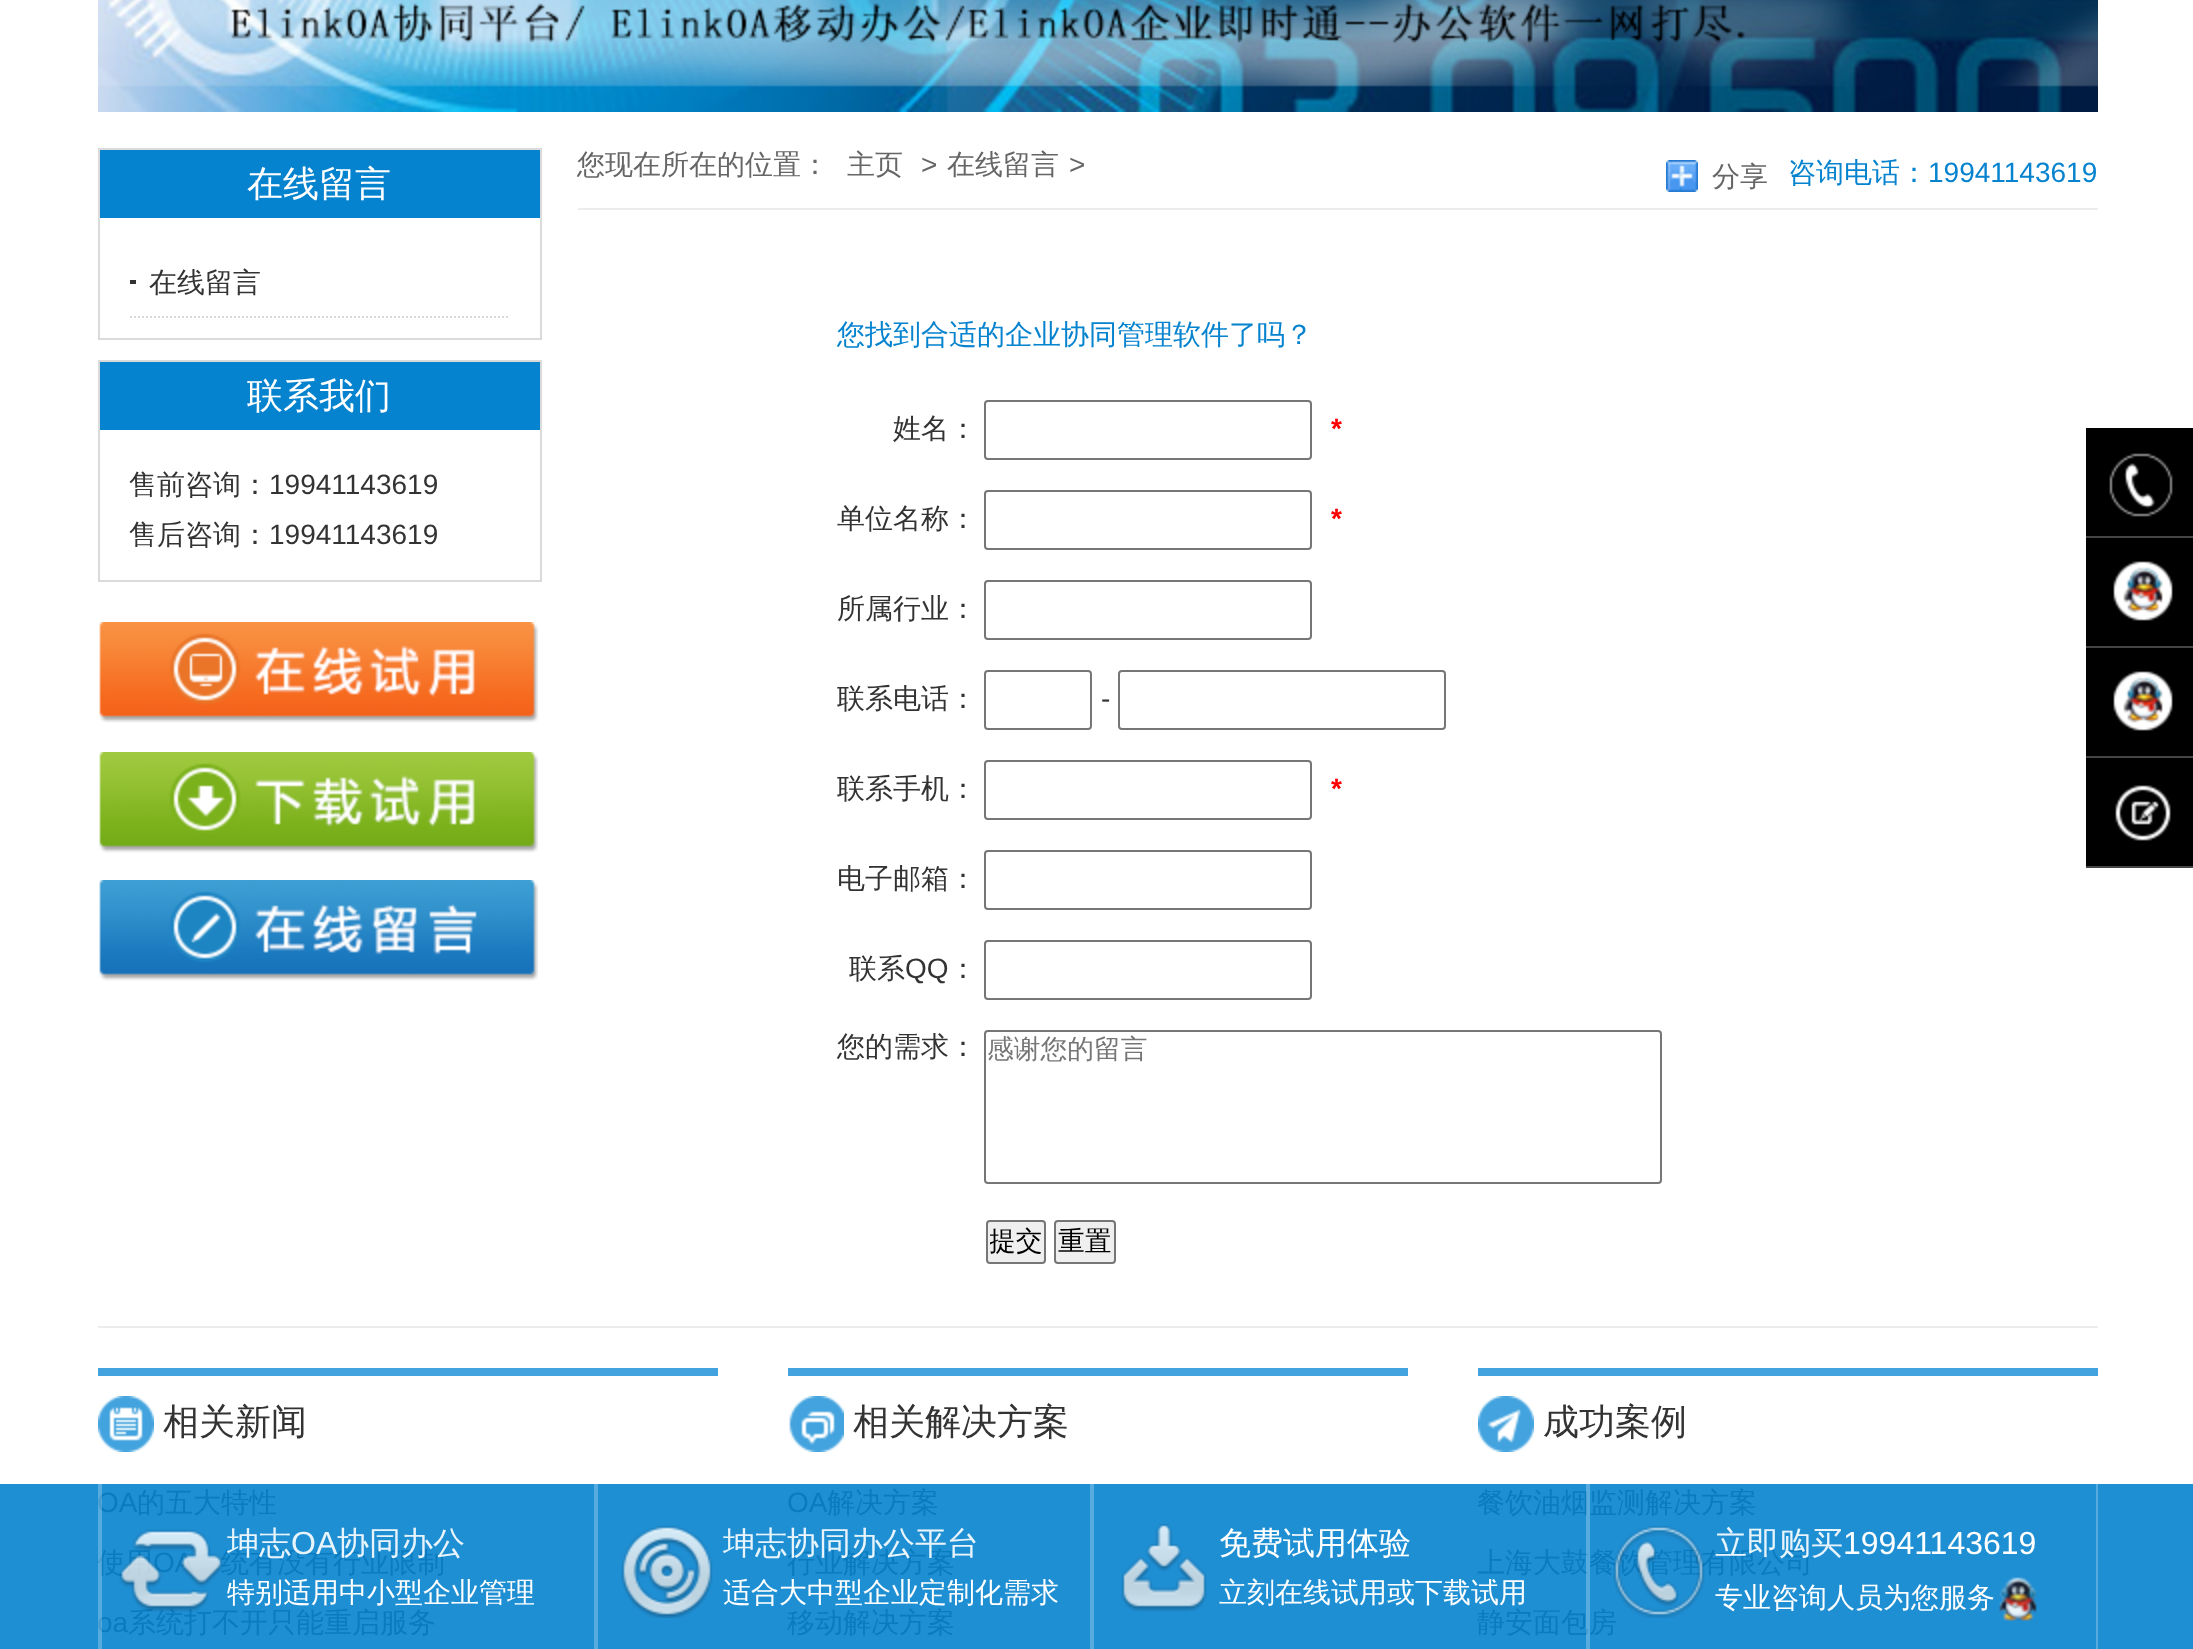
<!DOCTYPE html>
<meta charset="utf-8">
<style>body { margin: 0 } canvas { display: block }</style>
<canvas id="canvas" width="2193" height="1649"></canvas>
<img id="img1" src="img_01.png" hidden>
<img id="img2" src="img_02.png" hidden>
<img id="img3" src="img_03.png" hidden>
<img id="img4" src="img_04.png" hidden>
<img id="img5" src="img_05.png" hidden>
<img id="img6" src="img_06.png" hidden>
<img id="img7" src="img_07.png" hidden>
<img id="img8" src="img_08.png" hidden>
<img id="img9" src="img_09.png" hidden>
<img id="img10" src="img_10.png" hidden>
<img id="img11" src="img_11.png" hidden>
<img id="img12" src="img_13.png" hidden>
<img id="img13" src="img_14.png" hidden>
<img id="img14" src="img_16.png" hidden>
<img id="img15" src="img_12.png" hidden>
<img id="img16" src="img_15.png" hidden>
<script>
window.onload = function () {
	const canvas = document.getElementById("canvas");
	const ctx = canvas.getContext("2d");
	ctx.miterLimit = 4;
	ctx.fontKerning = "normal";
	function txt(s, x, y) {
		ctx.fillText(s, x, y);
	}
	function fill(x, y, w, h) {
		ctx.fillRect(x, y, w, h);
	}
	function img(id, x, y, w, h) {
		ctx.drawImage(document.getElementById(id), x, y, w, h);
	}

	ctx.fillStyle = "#FFFFFF";
	fill(0, 0, 2193, 1649);
	ctx.fillStyle = "#1F8FD4";
	fill(0, 1484, 2193, 165);
	img("img1", 98, 0, 2000, 112);
	ctx.strokeStyle = "#DADADA";
	ctx.lineWidth = 2;
	ctx.strokeRect(99, 149, 442, 190);
	ctx.fillStyle = "#0683CF";
	fill(100, 150, 440, 68);
	ctx.beginPath();
	ctx.moveTo(130, 317);
	ctx.lineTo(510, 317);
	ctx.setLineDash([2, 2]);
	ctx.stroke();
	ctx.fillStyle = "#333333";
	fill(130, 280, 6, 4);
	ctx.setLineDash([]);
	ctx.strokeRect(99, 361, 442, 220);
	ctx.fillStyle = "#0683CF";
	fill(100, 362, 440, 68);
	img("img2", 99, 622, 439, 101);
	img("img3", 99, 752, 439, 101);
	img("img4", 99, 880, 439, 101);
	ctx.fillStyle = "#ECECEC";
	fill(578, 208, 1520, 2);
	img("img5", 1666, 160, 32, 32);
	ctx.beginPath();
	ctx.roundRect(985, 401, 326, 58, 3);
	ctx.strokeStyle = "#767676";
	ctx.stroke();
	ctx.beginPath();
	ctx.roundRect(985, 491, 326, 58, 3);
	ctx.stroke();
	ctx.beginPath();
	ctx.roundRect(985, 581, 326, 58, 3);
	ctx.stroke();
	ctx.beginPath();
	ctx.roundRect(985, 671, 106, 58, 3);
	ctx.stroke();
	ctx.beginPath();
	ctx.roundRect(1119, 671, 326, 58, 3);
	ctx.stroke();
	ctx.beginPath();
	ctx.roundRect(985, 761, 326, 58, 3);
	ctx.stroke();
	ctx.beginPath();
	ctx.roundRect(985, 851, 326, 58, 3);
	ctx.stroke();
	ctx.beginPath();
	ctx.roundRect(985, 941, 326, 58, 3);
	ctx.stroke();
	ctx.beginPath();
	ctx.roundRect(985, 1031, 676, 152, 3);
	ctx.stroke();
	ctx.fillStyle = "#EFEFEF";
	ctx.beginPath();
	ctx.roundRect(987, 1221, 58, 42, 3);
	ctx.fill();
	ctx.stroke();
	ctx.beginPath();
	ctx.roundRect(1055, 1221, 60, 42, 3);
	ctx.fill();
	ctx.stroke();
	ctx.fillStyle = "#ECECEC";
	fill(98, 1326, 2000, 2);
	ctx.fillStyle = "#42A3DE";
	fill(98, 1368, 620, 8);
	img("img6", 98, 1396, 56, 56);
	fill(788, 1368, 620, 8);
	img("img7", 789, 1396, 55, 56);
	fill(1478, 1368, 620, 8);
	img("img8", 1478, 1396, 56, 56);
	ctx.fillStyle = "#444444";
	fill(2086, 536, 107, 2);
	ctx.fillStyle = "#000000";
	fill(2086, 428, 107, 108);
	img("img9", 2109, 453, 64, 64);
	ctx.fillStyle = "#444444";
	fill(2086, 646, 107, 2);
	ctx.fillStyle = "#000000";
	fill(2086, 538, 107, 108);
	img("img10", 2113, 561, 60, 60);
	ctx.fillStyle = "#444444";
	fill(2086, 756, 107, 2);
	ctx.fillStyle = "#000000";
	fill(2086, 648, 107, 108);
	img("img10", 2113, 671, 60, 60);
	ctx.fillStyle = "#444444";
	fill(2086, 866, 107, 2);
	ctx.fillStyle = "#000000";
	fill(2086, 758, 107, 108);
	img("img11", 2115, 785, 56, 56);
	ctx.fillStyle = "#57ABDF";
	fill(2096, 1484, 2, 165);
	fill(594, 1484, 4, 165);
	img("img12", 621, 1525, 92, 93);
	fill(1090, 1484, 4, 165);
	img("img13", 1121, 1524, 86, 88);
	img("img14", 1999, 1577, 38, 44);
	ctx.font = "500 36px WenQuanYi Zen Hei";
	ctx.fillStyle = "#FFFFFF";
	txt("在线留言", 247, 196);
	ctx.font = "500 28px WenQuanYi Zen Hei";
	ctx.fillStyle = "#333333";
	txt("在线留言", 149, 292);
	ctx.font = "500 36px WenQuanYi Zen Hei";
	ctx.fillStyle = "#FFFFFF";
	txt("联系我们", 247, 408);
	ctx.font = "500 28px WenQuanYi Zen Hei";
	ctx.fillStyle = "#333333";
	txt("售前咨询：", 129, 494);
	ctx.font = "28px Liberation Sans";
	txt("19941143619", 269, 494);
	ctx.font = "500 28px WenQuanYi Zen Hei";
	txt("售后咨询：", 129, 544);
	ctx.font = "28px Liberation Sans";
	txt("19941143619", 269, 544);
	ctx.font = "500 28px WenQuanYi Zen Hei";
	ctx.fillStyle = "#666666";
	txt("您现在所在的位置：", 577, 174);
	txt("主页", 847, 174);
	ctx.font = "28px Liberation Sans";
	txt(">", 921, 174);
	ctx.font = "500 28px WenQuanYi Zen Hei";
	txt("在线留言", 947, 174);
	ctx.font = "28px Liberation Sans";
	txt(">", 1069, 174);
	ctx.font = "500 28px WenQuanYi Zen Hei";
	txt("分享", 1712, 186);
	ctx.fillStyle = "#0683CF";
	txt("咨询电话：", 1788, 182);
	ctx.font = "28px Liberation Sans";
	txt("19941143619", 1928, 182);
	ctx.font = "500 28px WenQuanYi Zen Hei";
	txt("您找到合适的企业协同管理软件了吗？", 837, 344);
	ctx.fillStyle = "#333333";
	txt("姓名：", 893, 438);
	ctx.font = "bold 28px Liberation Sans";
	ctx.fillStyle = "#FF0000";
	txt("*", 1331, 438);
	ctx.font = "500 28px WenQuanYi Zen Hei";
	ctx.fillStyle = "#333333";
	txt("单位名称：", 837, 528);
	ctx.font = "bold 28px Liberation Sans";
	ctx.fillStyle = "#FF0000";
	txt("*", 1331, 528);
	ctx.font = "500 28px WenQuanYi Zen Hei";
	ctx.fillStyle = "#333333";
	txt("所属行业：", 837, 618);
	txt("联系电话：", 837, 708);
	ctx.font = "28px Liberation Sans";
	txt("-", 1101, 708);
	ctx.font = "500 28px WenQuanYi Zen Hei";
	txt("联系手机：", 837, 798);
	ctx.font = "bold 28px Liberation Sans";
	ctx.fillStyle = "#FF0000";
	txt("*", 1331, 798);
	ctx.font = "500 28px WenQuanYi Zen Hei";
	ctx.fillStyle = "#333333";
	txt("电子邮箱：", 837, 888);
	txt("联系", 849, 978);
	ctx.font = "28px Liberation Sans";
	txt("QQ", 905, 978);
	ctx.font = "500 28px WenQuanYi Zen Hei";
	txt("：", 949, 978);
	txt("您的需求：", 837, 1056);
	ctx.font = "500 26.75px WenQuanYi Zen Hei";
	ctx.fillStyle = "#757575";
	txt("感谢您的留言", 987, 1058);
	ctx.save();
	ctx.beginPath();
	ctx.rect(990, 1224, 52, 36);
	ctx.clip();
	ctx.fillStyle = "#000000";
	txt("提交", 989, 1250);
	ctx.restore();
	ctx.fillStyle = "#000000";
	txt("重置", 1058, 1250);
	ctx.font = "500 36px WenQuanYi Zen Hei";
	ctx.fillStyle = "#333333";
	txt("相关新闻", 163, 1434);
	ctx.font = "28px Liberation Sans";
	ctx.fillStyle = "#0B7BBF";
	txt("OA", 97, 1512);
	ctx.font = "500 28px WenQuanYi Zen Hei";
	txt("的五大特性", 137, 1512);
	txt("使用", 97, 1572);
	ctx.font = "28px Liberation Sans";
	txt("OA", 153, 1572);
	ctx.font = "500 28px WenQuanYi Zen Hei";
	txt("统有没有行业限制", 221, 1572);
	ctx.font = "28px Liberation Sans";
	txt("oa", 97, 1632);
	ctx.font = "500 28px WenQuanYi Zen Hei";
	txt("系统打不开只能重启服务", 128, 1632);
	ctx.font = "500 36px WenQuanYi Zen Hei";
	ctx.fillStyle = "#333333";
	txt("相关解决方案", 853, 1434);
	ctx.font = "28px Liberation Sans";
	ctx.fillStyle = "#0B7BBF";
	txt("OA", 787, 1512);
	ctx.font = "500 28px WenQuanYi Zen Hei";
	txt("解决方案", 827, 1512);
	txt("行业解决方案", 787, 1572);
	txt("移动解决方案", 787, 1632);
	ctx.font = "500 36px WenQuanYi Zen Hei";
	ctx.fillStyle = "#333333";
	txt("成功案例", 1543, 1434);
	ctx.font = "500 28px WenQuanYi Zen Hei";
	ctx.fillStyle = "#0B7BBF";
	txt("餐饮油烟监测解决方案", 1477, 1512);
	txt("上海大鼓餐饮管理有限公司", 1477, 1572);
	txt("静安面包房", 1477, 1632);
	ctx.fillStyle = "rgba(255, 255, 255, 0.25)";
	fill(98, 1484, 4, 165);
	img("img15", 119, 1529, 104, 83);
	ctx.font = "500 32px WenQuanYi Zen Hei";
	ctx.fillStyle = "#E8F4FB";
	txt("坤志", 227, 1554);
	ctx.font = "32px Liberation Sans";
	txt("OA", 291, 1554);
	ctx.font = "500 32px WenQuanYi Zen Hei";
	txt("协同办公", 337, 1554);
	ctx.font = "500 28px WenQuanYi Zen Hei";
	ctx.fillStyle = "#FFFFFF";
	txt("特别适用中小型企业管理", 227, 1602);
	ctx.font = "500 32px WenQuanYi Zen Hei";
	ctx.fillStyle = "#E8F4FB";
	txt("坤志协同办公平台", 723, 1554);
	ctx.font = "500 28px WenQuanYi Zen Hei";
	ctx.fillStyle = "#FFFFFF";
	txt("适合大中型企业定制化需求", 723, 1602);
	ctx.font = "500 32px WenQuanYi Zen Hei";
	txt("免费试用体验", 1219, 1554);
	ctx.font = "500 28px WenQuanYi Zen Hei";
	txt("立刻在线试用或下载试用", 1219, 1602);
	ctx.fillStyle = "rgba(255, 255, 255, 0.25)";
	fill(1586, 1484, 4, 165);
	img("img16", 1613, 1526, 92, 92);
	ctx.font = "500 32px WenQuanYi Zen Hei";
	ctx.fillStyle = "#E8F4FB";
	txt("立即购买", 1715, 1554);
	ctx.font = "32px Liberation Sans";
	ctx.fillStyle = "#FFFFFF";
	txt("19941143619", 1843, 1554);
	ctx.font = "500 28px WenQuanYi Zen Hei";
	txt("专业咨询人员为您服务", 1715, 1607);
};
</script>
